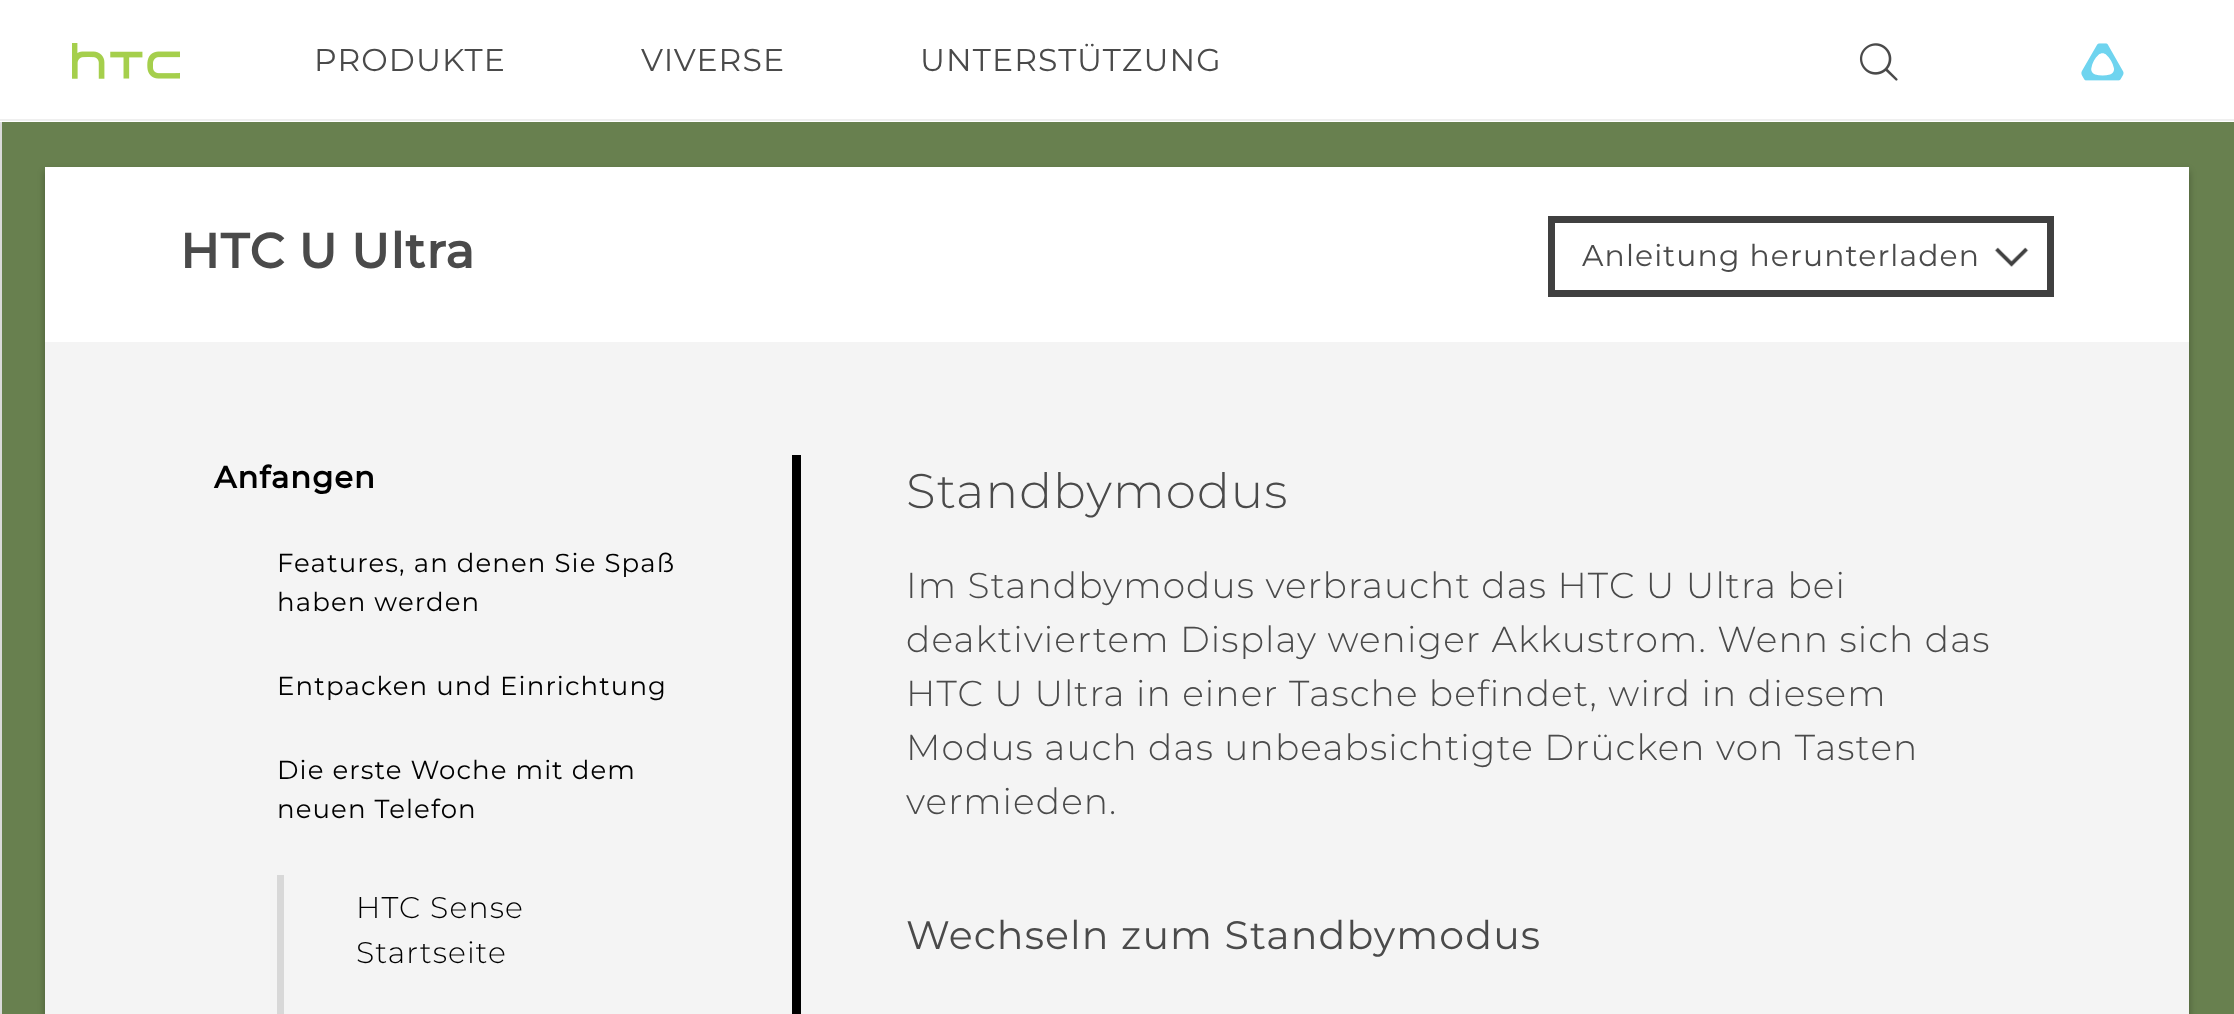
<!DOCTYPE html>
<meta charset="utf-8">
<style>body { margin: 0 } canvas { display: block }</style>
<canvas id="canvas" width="2234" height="1014"></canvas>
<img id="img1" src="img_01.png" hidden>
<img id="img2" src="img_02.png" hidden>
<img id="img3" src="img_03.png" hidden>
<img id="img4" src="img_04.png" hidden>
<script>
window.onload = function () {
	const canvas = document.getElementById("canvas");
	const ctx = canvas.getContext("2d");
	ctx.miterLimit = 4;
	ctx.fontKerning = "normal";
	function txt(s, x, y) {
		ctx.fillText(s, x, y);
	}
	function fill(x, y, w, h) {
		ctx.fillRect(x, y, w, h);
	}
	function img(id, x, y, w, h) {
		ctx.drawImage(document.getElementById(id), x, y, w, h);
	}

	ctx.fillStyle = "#FFFFFF";
	fill(0, 0, 2234, 1014);
	ctx.fillStyle = "#EFEFEF";
	fill(0, 119, 2234, 2);
	img("img1", 72, 43, 108, 36);
	img("img2", 1859, 43, 39, 38);
	img("img3", 2081, 43, 43, 38);
	ctx.fillStyle = "#DADADA";
	fill(0, 122, 2, 892);
	ctx.fillStyle = "#68804F";
	fill(2, 122, 2232, 892);
	ctx.fillStyle = "rgba(0, 0, 0, 0.3)";
	ctx.filter = "blur(3.5px)";
	ctx.beginPath();
	ctx.rect(45, 171, 2144, 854);
	ctx.fill();
	ctx.filter = "none";
	ctx.fillStyle = "#FFFFFF";
	fill(45, 167, 2144, 175);
	ctx.strokeStyle = "#404040";
	ctx.lineWidth = 7;
	ctx.strokeRect(1551.5, 219.5, 499, 74);
	img("img4", 1994, 247, 35, 20);
	ctx.fillStyle = "#F4F4F4";
	fill(45, 342, 2144, 672);
	ctx.fillStyle = "#D8D8D8";
	fill(277, 875, 7, 139);
	ctx.fillStyle = "#000000";
	fill(792, 455, 9, 559);
	ctx.letterSpacing = "1.12px";
	ctx.font = "31.5px Montserrat";
	ctx.fillStyle = "#4A4A4A";
	txt("PRODUKTE", 314, 71);
	txt("VIVERSE", 641, 71);
	txt("UNTERSTÜTZUNG", 920, 71);
	ctx.wordSpacing = "-1px";
	ctx.font = "bold 48.5px Montserrat";
	txt("HTC U Ultra", 180, 268);
	ctx.wordSpacing = "0px";
	ctx.font = "29.9px Montserrat";
	txt("Anleitung herunterladen", 1582, 266);
	ctx.font = "bold 30.5px Montserrat";
	ctx.fillStyle = "#000000";
	txt("Anfangen", 214, 488);
	ctx.font = "26px Montserrat";
	txt("Features, an denen Sie Spaß", 277, 572);
	txt("haben werden", 277, 611);
	txt("Entpacken und Einrichtung", 277, 695);
	txt("Die erste Woche mit dem", 277, 779);
	txt("neuen Telefon", 277, 818);
	ctx.font = "300 29.9px Montserrat";
	txt("HTC Sense", 356, 918);
	txt("Startseite", 356, 963);
	ctx.font = "300 48.5px Montserrat";
	ctx.fillStyle = "#4A4A4A";
	txt("Standbymodus", 906, 508);
	ctx.font = "300 36px Montserrat";
	txt("Im Standbymodus verbraucht das HTC U Ultra bei", 906, 598);
	txt("deaktiviertem Display weniger Akkustrom. Wenn sich das", 906, 652);
	txt("HTC U Ultra in einer Tasche befindet, wird in diesem", 906, 706);
	txt("Modus auch das unbeabsichtigte Drücken von Tasten", 906, 760);
	txt("vermieden.", 906, 814);
	ctx.font = "39.5px Montserrat";
	txt("Wechseln zum Standbymodus", 906, 949);
};
</script>
